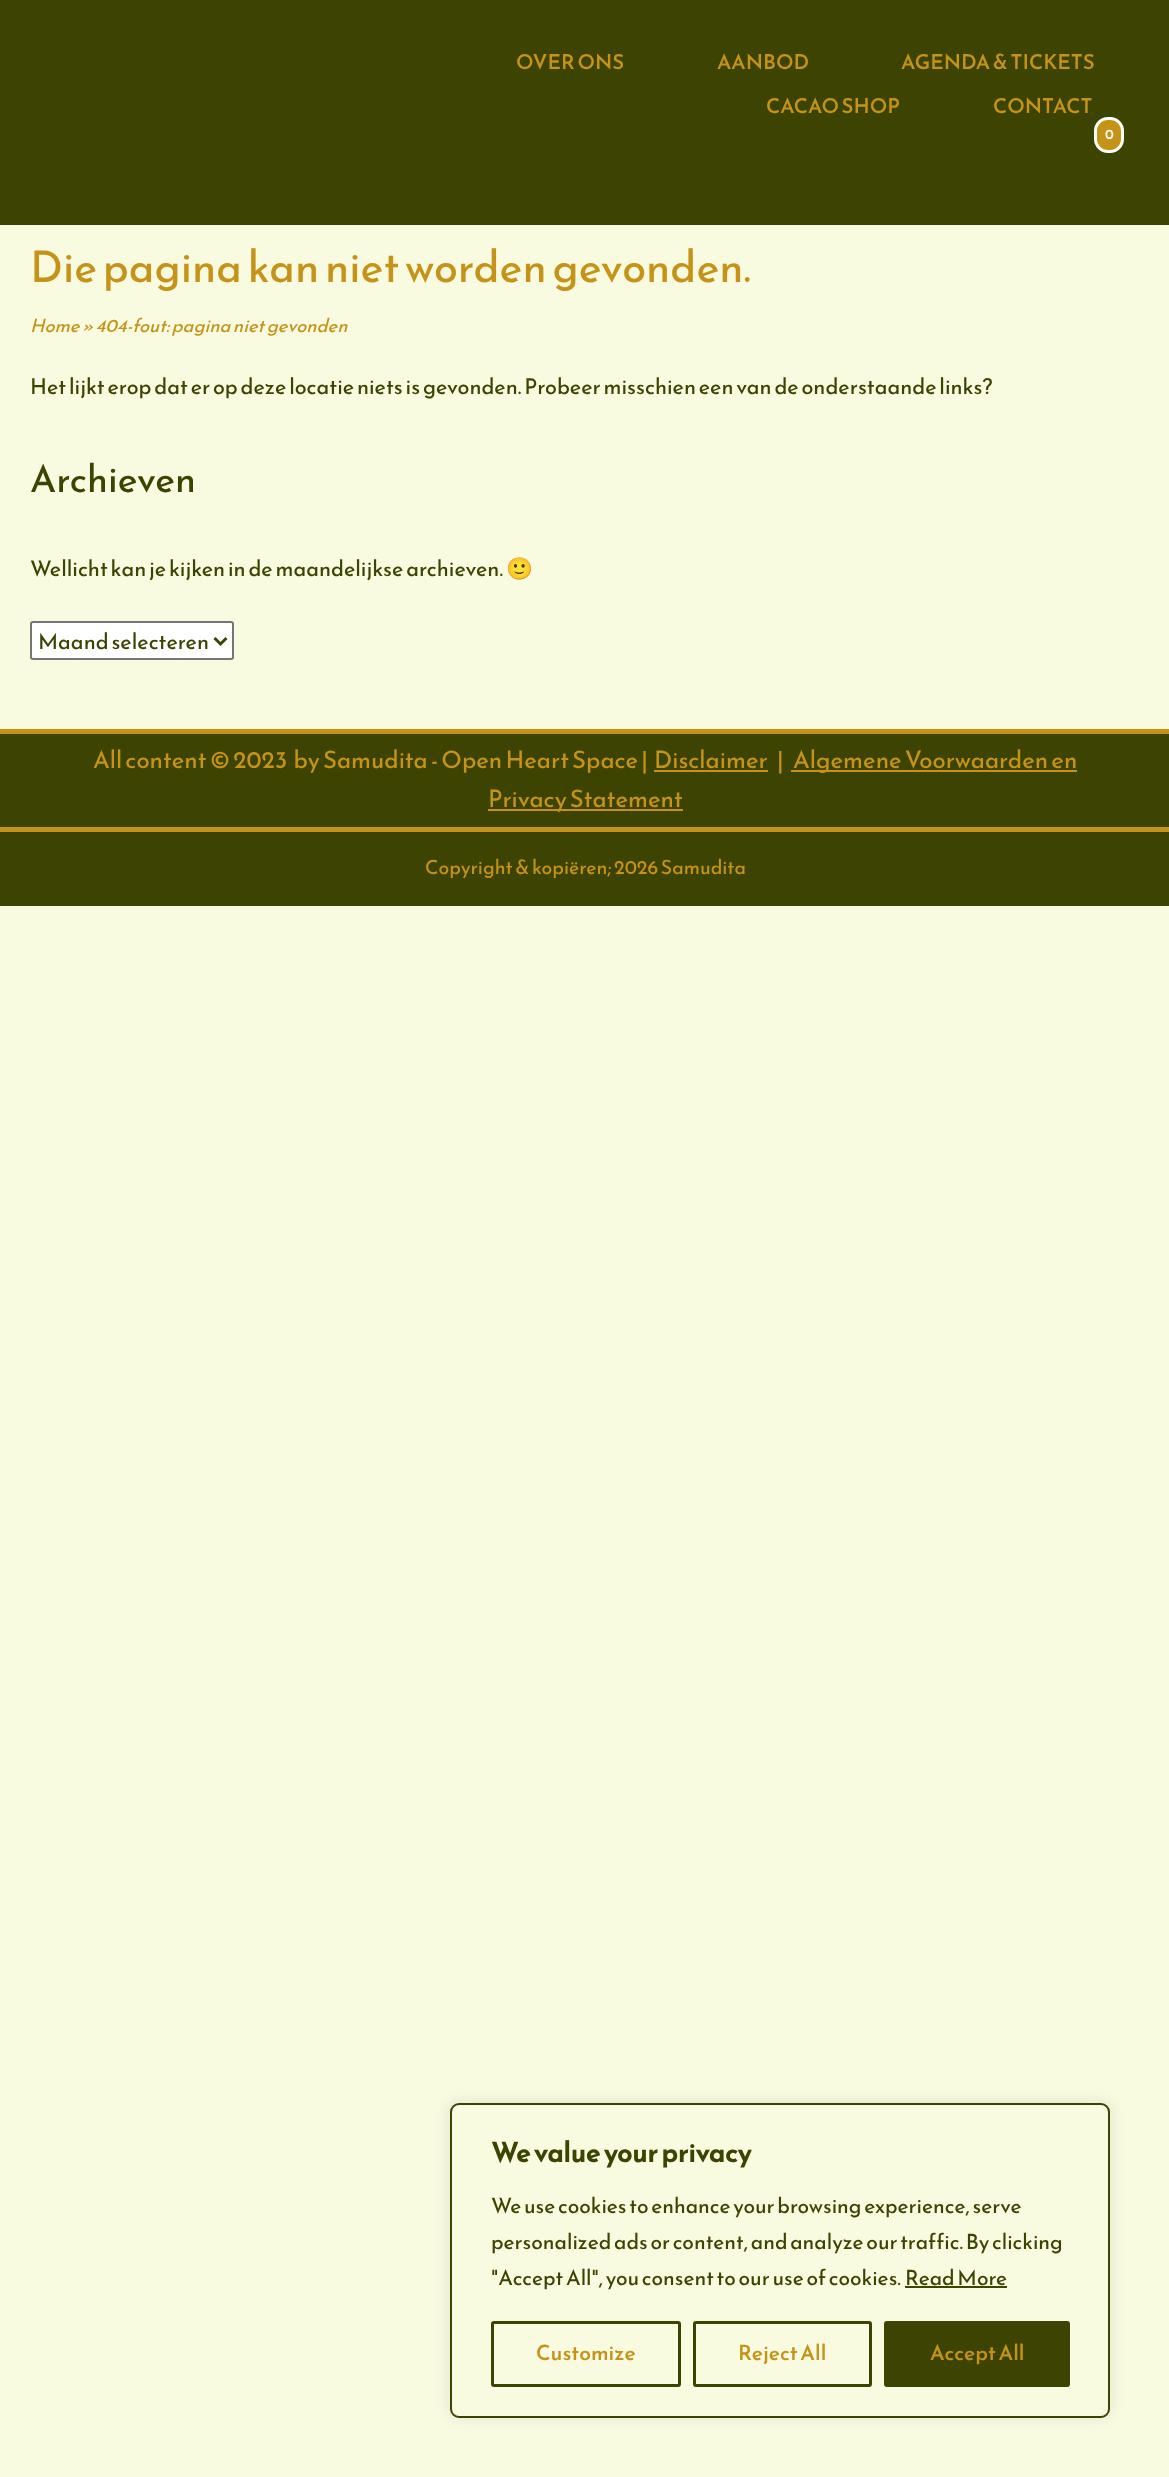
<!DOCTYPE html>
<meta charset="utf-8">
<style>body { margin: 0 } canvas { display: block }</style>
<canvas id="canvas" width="1169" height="2477"></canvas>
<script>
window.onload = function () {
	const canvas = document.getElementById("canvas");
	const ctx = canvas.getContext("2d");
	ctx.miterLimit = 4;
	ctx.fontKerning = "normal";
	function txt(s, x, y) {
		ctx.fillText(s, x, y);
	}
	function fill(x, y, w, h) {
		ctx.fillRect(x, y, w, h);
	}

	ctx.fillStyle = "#F8FBDF";
	fill(0, 0, 1169, 2477);
	ctx.fillStyle = "#3D4300";
	fill(0, 0, 1169, 225);
	ctx.fillStyle = "#C69318";
	ctx.beginPath();
	ctx.roundRect(1095.5, 118.5, 27, 33, 12.5);
	ctx.fill();
	ctx.strokeStyle = "#FFFFFF";
	ctx.lineWidth = 3;
	ctx.stroke();
	ctx.fillStyle = "#FFFFFF";
	ctx.beginPath();
	ctx.roundRect(31, 622, 202, 37, 2);
	ctx.fill();
	ctx.strokeStyle = "#767676";
	ctx.lineWidth = 2;
	ctx.stroke();
	ctx.beginPath();
	ctx.moveTo(214.5, 638);
	ctx.lineTo(220.5, 644);
	ctx.lineTo(226.5, 638);
	ctx.strokeStyle = "#3D4300";
	ctx.lineWidth = 3;
	ctx.stroke();
	ctx.fillStyle = "#3D4300";
	fill(0, 734, 1169, 172);
	ctx.fillStyle = "#C69318";
	fill(0, 729, 1169, 5);
	fill(654, 770, 114, 2);
	fill(791, 770, 286, 2);
	fill(488, 809, 195, 2);
	fill(0, 827, 1169, 5);
	ctx.fillStyle = "rgba(172, 171, 171, 0.3)";
	ctx.filter = "blur(7.5px)";
	ctx.beginPath();
	ctx.roundRect(450, 2102, 660, 315, 9);
	ctx.fill();
	ctx.filter = "none";
	ctx.fillStyle = "#F8FBDF";
	ctx.beginPath();
	ctx.roundRect(451, 2104, 658, 313, 8);
	ctx.fill();
	ctx.lineWidth = 2;
	ctx.stroke();
	ctx.fillStyle = "#3D4300";
	fill(905, 2286, 102, 2);
	ctx.beginPath();
	ctx.roundRect(492.5, 2322.5, 187, 63, 1.5);
	ctx.lineWidth = 3;
	ctx.stroke();
	ctx.beginPath();
	ctx.roundRect(694.5, 2322.5, 176, 63, 1.5);
	ctx.stroke();
	ctx.beginPath();
	ctx.roundRect(885.5, 2322.5, 183, 63, 1.5);
	ctx.fill();
	ctx.stroke();
	ctx.font = "500 20.5px Reem Kufi";
	ctx.fillStyle = "#C69318";
	txt("OVER ONS", 516, 69);
	txt("AANBOD", 717, 69);
	txt("AGENDA & TICKETS", 901, 69);
	txt("CACAO SHOP", 766, 113);
	txt("CONTACT", 993, 113);
	ctx.font = "500 14px Reem Kufi";
	ctx.fillStyle = "#FFFFFF";
	txt("0", 1105, 139);
	ctx.font = "43.5px Reem Kufi Fun";
	ctx.fillStyle = "#C69318";
	txt("Die pagina kan niet worden gevonden.", 30, 282);
	ctx.font = "italic 18.4px Reem Kufi";
	txt("Home » 404-fout: pagina niet gevonden", 30, 332);
	ctx.font = "21.6px Reem Kufi";
	ctx.fillStyle = "#3D4300";
	txt("Het lijkt erop dat er op deze locatie niets is gevonden. Probeer misschien een van de onderstaande links?", 30, 394);
	ctx.font = "37.5px Reem Kufi Fun";
	txt("Archieven", 30, 492);
	ctx.font = "21.6px Reem Kufi";
	txt("Wellicht kan je kijken in de maandelijkse archieven.", 30, 576);
	ctx.font = "21.6px Noto Color Emoji";
	txt("🙂", 506, 576);
	ctx.font = "21.6px Reem Kufi";
	txt("Maand selecteren", 38, 649);
	ctx.font = "24px Reem Kufi";
	ctx.fillStyle = "#C69318";
	txt("All content © 2023  by Samudita - Open Heart Space |", 93, 768);
	txt("Disclaimer", 654, 768);
	txt("|", 777, 768);
	txt("Algemene Voorwaarden en", 793, 768);
	txt("Privacy Statement", 488, 807);
	ctx.font = "19.5px Reem Kufi";
	txt("Copyright & kopiëren; 2026 Samudita", 425, 874);
	ctx.font = "bold 27px Reem Kufi";
	ctx.fillStyle = "#3D4300";
	txt("We value your privacy", 491, 2162);
	ctx.font = "21px Reem Kufi";
	txt("We use cookies to enhance your browsing experience, serve", 491, 2213);
	txt("personalized ads or content, and analyze our traffic. By clicking", 491, 2249);
	txt("\"Accept All\", you consent to our use of cookies.", 491, 2285);
	txt("Read More", 905, 2285);
	ctx.font = "500 21px Reem Kufi";
	ctx.fillStyle = "#C69318";
	txt("Customize", 536, 2360);
	txt("Reject All", 738, 2360);
	txt("Accept All", 930, 2360);
};
</script>
